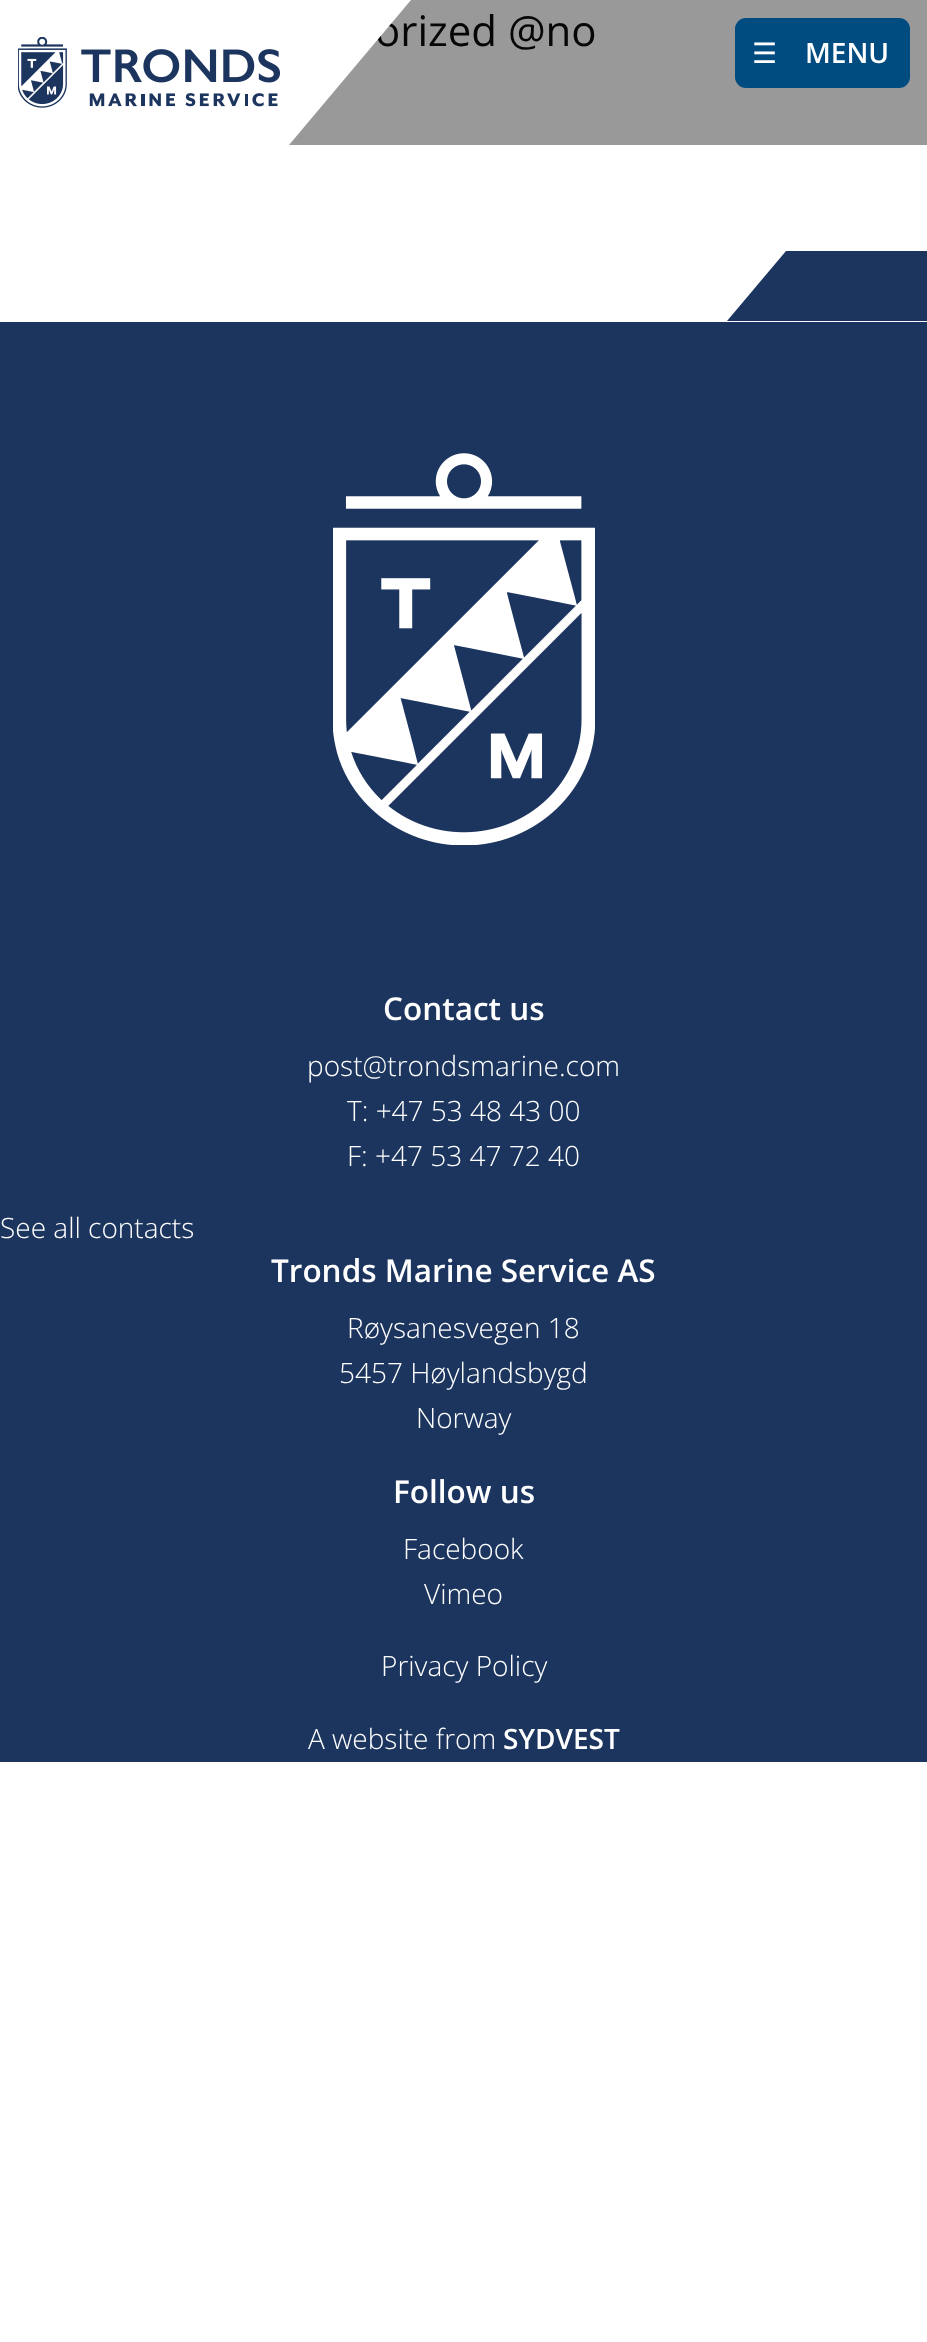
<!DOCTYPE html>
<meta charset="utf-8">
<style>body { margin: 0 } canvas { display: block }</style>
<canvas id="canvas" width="927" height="2342"></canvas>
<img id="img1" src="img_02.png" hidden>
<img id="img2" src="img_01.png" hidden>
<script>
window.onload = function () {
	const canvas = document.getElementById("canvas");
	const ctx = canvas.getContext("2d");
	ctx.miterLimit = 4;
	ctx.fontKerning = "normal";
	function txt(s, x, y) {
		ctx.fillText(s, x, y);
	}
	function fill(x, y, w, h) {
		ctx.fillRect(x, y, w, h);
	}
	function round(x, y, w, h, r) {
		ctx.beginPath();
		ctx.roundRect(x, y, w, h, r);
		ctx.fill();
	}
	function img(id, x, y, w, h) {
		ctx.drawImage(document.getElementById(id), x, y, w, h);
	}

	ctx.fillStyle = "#FFFFFF";
	fill(0, 0, 927, 2342);
	ctx.fillStyle = "#999999";
	fill(289, 0, 638, 145);
	ctx.fillStyle = "#004C80";
	ctx.beginPath();
	ctx.roundRect(735, 18, 60, 70, [11, 0, 0, 11]);
	ctx.fill();
	round(784, 18, 126, 70, 11);
	ctx.fillStyle = "#1C355E";
	fill(0, 322, 927, 1440);
	ctx.beginPath();
	ctx.moveTo(786, 251);
	ctx.lineTo(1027, 251);
	ctx.lineTo(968, 321);
	ctx.lineTo(727, 321);
	ctx.closePath();
	ctx.fill();
	img("img1", 333, 453, 262, 392);
	ctx.font = "42px Open Sans";
	ctx.fillStyle = "#060606";
	txt("orized @no", 375, 46);
	ctx.fillStyle = "#FFFFFF";
	ctx.beginPath();
	ctx.moveTo(280, 0);
	ctx.lineTo(411, 0);
	ctx.lineTo(289, 145);
	ctx.lineTo(158, 145);
	ctx.closePath();
	ctx.fill();
	img("img2", 18, 37, 262, 71);
	ctx.font = "28px DejaVu Sans";
	txt("☰", 752, 63);
	ctx.font = "600 28px Open Sans";
	txt("MENU", 805, 63);
	ctx.font = "600 31.5px Open Sans";
	txt("Contact us", 383, 1020);
	ctx.font = "300 28px Open Sans";
	txt("post@trondsmarine.com", 307, 1076);
	txt("T: +47 53 48 43 00", 347, 1121);
	txt("F: +47 53 47 72 40", 347, 1166);
	txt("See all contacts", 0, 1238);
	ctx.font = "600 31.5px Open Sans";
	txt("Tronds Marine Service AS", 271, 1282);
	ctx.font = "300 28px Open Sans";
	txt("Røysanesvegen 18", 347, 1338);
	txt("5457 Høylandsbygd", 339, 1383);
	txt("Norway", 416, 1428);
	ctx.font = "600 31.5px Open Sans";
	txt("Follow us", 393, 1503);
	ctx.font = "300 28px Open Sans";
	txt("Facebook", 403, 1559);
	txt("Vimeo", 424, 1604);
	txt("Privacy Policy", 381, 1676);
	txt("A website from", 308, 1749);
	ctx.font = "600 28px Open Sans";
	txt("SYDVEST", 503, 1749);
};
</script>
